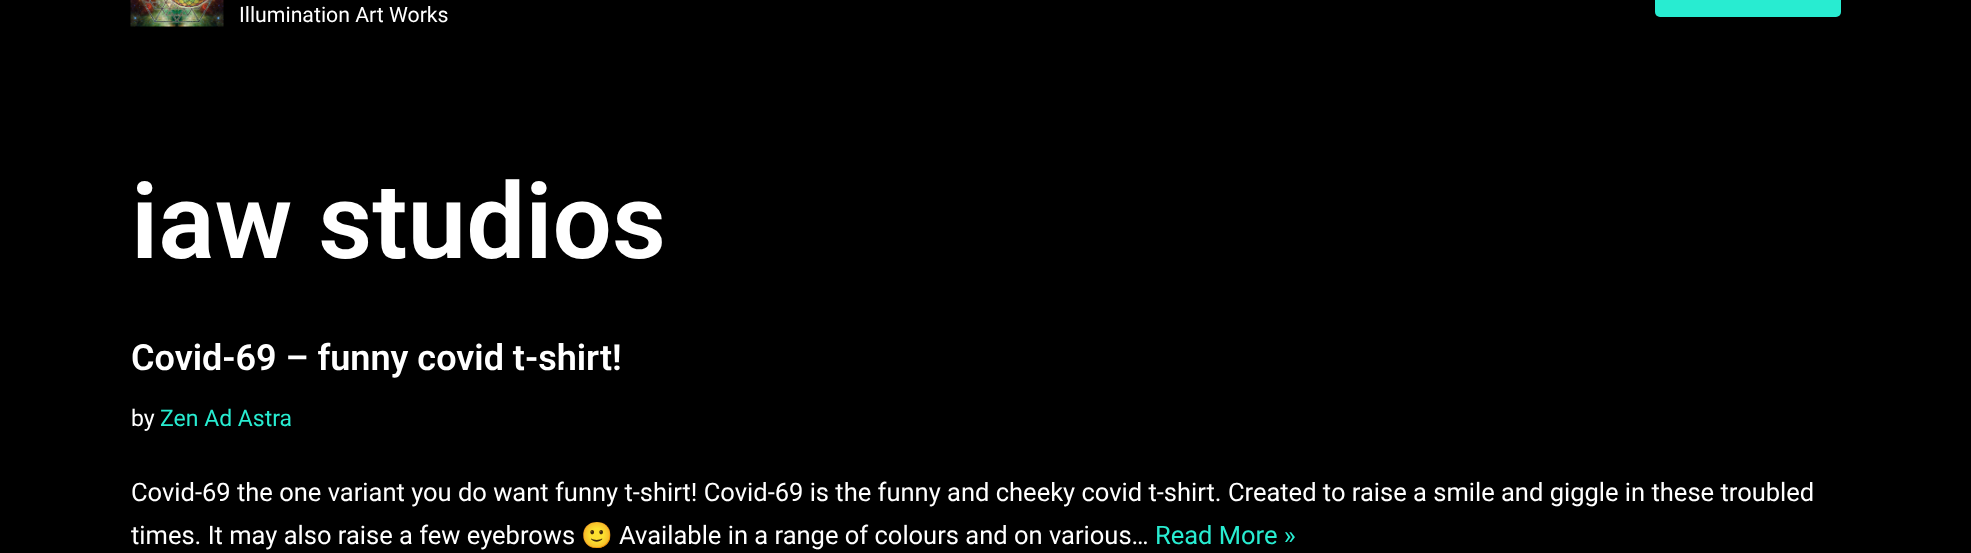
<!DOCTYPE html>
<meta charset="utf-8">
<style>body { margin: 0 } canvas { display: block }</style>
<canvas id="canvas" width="1971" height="553"></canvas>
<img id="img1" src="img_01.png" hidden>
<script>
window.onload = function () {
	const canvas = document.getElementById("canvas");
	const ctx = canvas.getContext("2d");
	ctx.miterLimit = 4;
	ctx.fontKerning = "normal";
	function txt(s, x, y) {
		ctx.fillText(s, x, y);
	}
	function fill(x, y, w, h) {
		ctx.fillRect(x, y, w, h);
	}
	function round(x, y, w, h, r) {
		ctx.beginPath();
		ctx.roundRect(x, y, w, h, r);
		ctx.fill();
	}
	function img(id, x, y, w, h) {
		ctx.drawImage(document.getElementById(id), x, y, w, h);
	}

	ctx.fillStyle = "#000000";
	fill(0, 0, 1971, 553);
	img("img1", 130, 0, 94, 27);
	ctx.fillStyle = "#28ECD1";
	round(1655, -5, 186, 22, 5);
	ctx.font = "21.25px Roboto";
	ctx.fillStyle = "#FFFFFF";
	txt("Illumination Art Works", 239, 22);
	ctx.font = "600 105px Roboto";
	txt("iaw studios", 131, 258);
	ctx.font = "600 36px Roboto";
	txt("Covid-69 – funny covid t-shirt!", 131, 370);
	ctx.font = "23px Roboto";
	txt("by", 131, 426);
	ctx.fillStyle = "#28ECD1";
	txt("Zen Ad Astra", 160, 426);
	ctx.font = "25.5px Roboto";
	ctx.fillStyle = "#FFFFFF";
	txt("Covid-69 the one variant you do want funny t-shirt! Covid-69 is the funny and cheeky covid t-shirt. Created to raise a smile and giggle in these troubled", 131, 501);
	txt("times. It may also raise a few eyebrows", 131, 544);
	ctx.font = "25.5px Noto Color Emoji";
	txt("🙂", 581, 544);
	ctx.font = "25.5px Roboto";
	txt("Available in a range of colours and on various…", 619, 544);
	ctx.fillStyle = "#28ECD1";
	txt("Read More »", 1155, 544);
};
</script>
